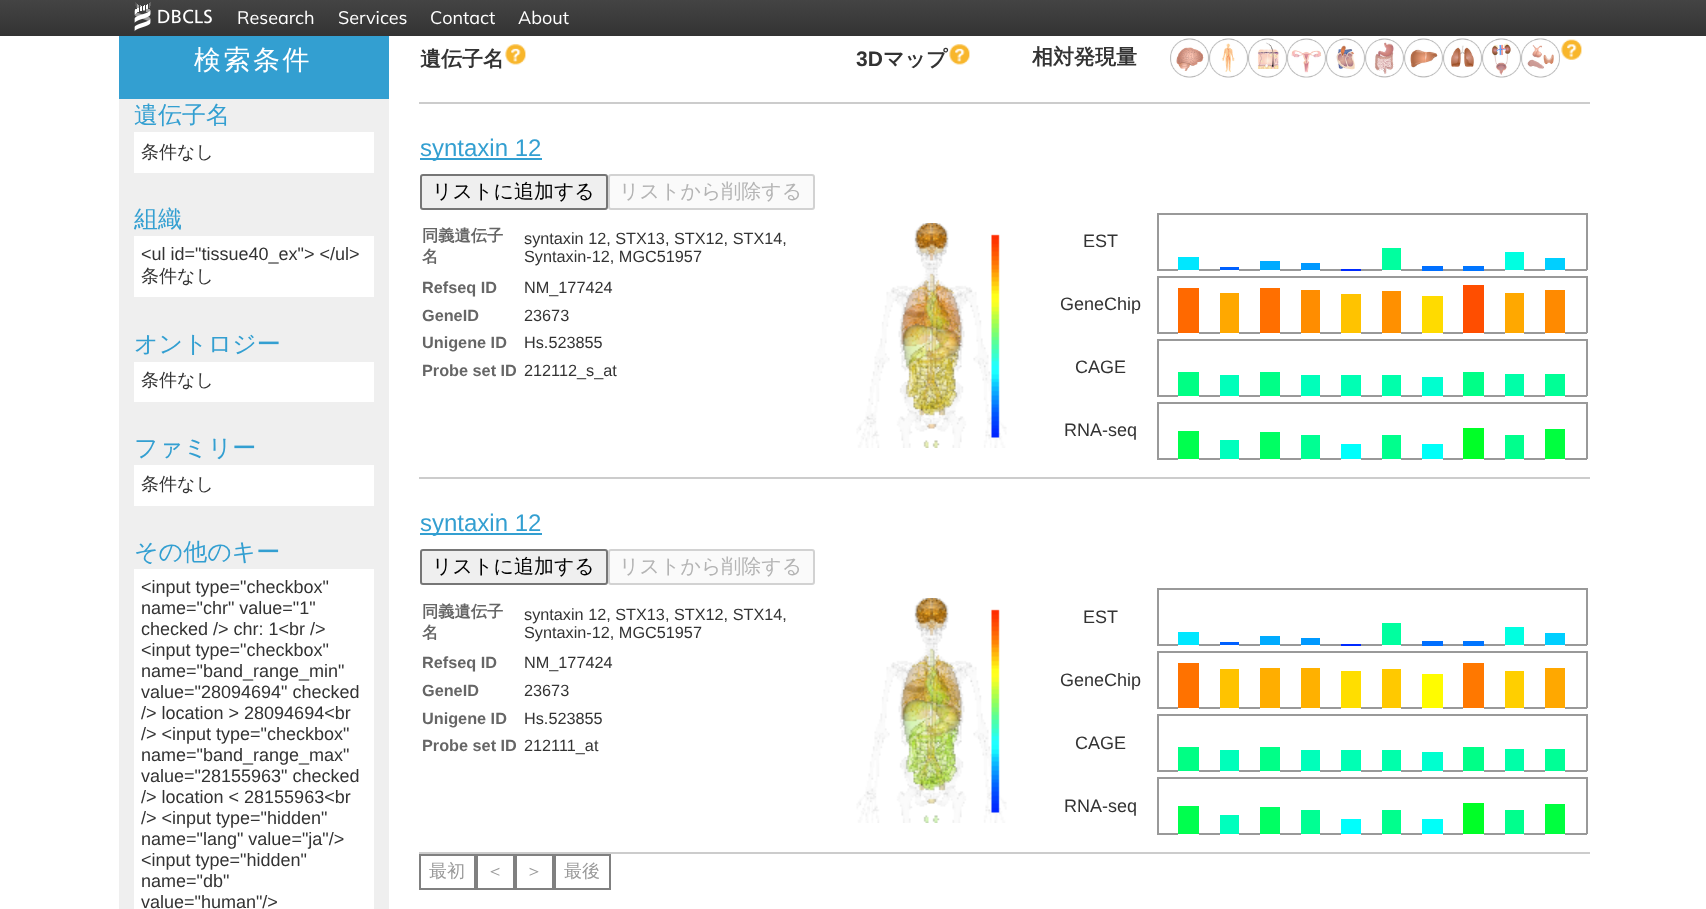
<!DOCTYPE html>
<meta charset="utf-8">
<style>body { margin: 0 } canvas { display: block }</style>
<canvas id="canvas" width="1706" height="909"></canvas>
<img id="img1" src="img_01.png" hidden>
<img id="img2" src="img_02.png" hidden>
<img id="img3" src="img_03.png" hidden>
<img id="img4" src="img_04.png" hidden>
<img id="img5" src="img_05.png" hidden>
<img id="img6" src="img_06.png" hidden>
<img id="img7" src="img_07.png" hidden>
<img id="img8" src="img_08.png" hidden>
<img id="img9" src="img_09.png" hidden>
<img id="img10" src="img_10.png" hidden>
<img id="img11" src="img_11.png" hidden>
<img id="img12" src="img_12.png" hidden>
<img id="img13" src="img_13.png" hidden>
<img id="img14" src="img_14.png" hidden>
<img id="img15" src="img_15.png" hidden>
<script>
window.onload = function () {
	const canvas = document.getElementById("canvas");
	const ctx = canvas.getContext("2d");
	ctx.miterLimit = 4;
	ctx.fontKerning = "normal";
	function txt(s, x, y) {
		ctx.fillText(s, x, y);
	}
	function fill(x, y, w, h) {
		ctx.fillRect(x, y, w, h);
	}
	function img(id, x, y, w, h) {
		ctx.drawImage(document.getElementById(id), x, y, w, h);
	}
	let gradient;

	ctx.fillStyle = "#FFFFFF";
	fill(0, 0, 1706, 909);
	gradient = ctx.createLinearGradient(854, 0, 854, 36);
	gradient.addColorStop(0, "#444444");
	gradient.addColorStop(1, "#333333");
	ctx.fillStyle = gradient;
	fill(0, 0, 1706, 36);
	img("img1", 134, 2, 78, 30);
	ctx.fillStyle = "#EFEFEF";
	fill(119, 99, 270, 810);
	ctx.fillStyle = "#339FD1";
	fill(119, 36, 270, 63);
	ctx.fillStyle = "#FFFFFF";
	fill(134, 132, 240, 41);
	fill(134, 236, 240, 61);
	fill(134, 362, 240, 40);
	fill(134, 465, 240, 41);
	fill(134, 569, 240, 340);
	ctx.fillStyle = "#CCCCCC";
	fill(419, 102, 1171, 2);
	img("img2", 1170, 38, 39, 40);
	img("img3", 1209, 38, 39, 40);
	img("img4", 1248, 38, 39, 40);
	img("img5", 1287, 38, 39, 40);
	img("img6", 1326, 38, 39, 40);
	img("img7", 1365, 38, 39, 40);
	img("img8", 1404, 38, 39, 40);
	img("img9", 1443, 38, 39, 40);
	img("img10", 1482, 38, 39, 40);
	img("img11", 1521, 38, 39, 40);
	img("img12", 1561, 39, 21, 21);
	img("img13", 505, 44, 21, 21);
	img("img13", 949, 44, 21, 21);
	ctx.fillStyle = "#339FD1";
	fill(420, 158, 122, 2);
	ctx.fillStyle = "#EFEFEF";
	ctx.beginPath();
	ctx.roundRect(421, 175, 186, 34, 2);
	ctx.fill();
	ctx.strokeStyle = "#767676";
	ctx.lineWidth = 2;
	ctx.stroke();
	ctx.fillStyle = "#FAFAFA";
	ctx.beginPath();
	ctx.roundRect(609, 175, 205, 34, 2);
	ctx.fill();
	ctx.strokeStyle = "#D2D2D2";
	ctx.stroke();
	img("img14", 856, 223, 151, 225);
	ctx.fillStyle = "#CCCCCC";
	fill(419, 477, 1171, 2);
	ctx.fillStyle = "#999999";
	fill(1157, 213, 430, 2);
	fill(1157, 269, 21, 2);
	fill(1157, 213, 2, 57);
	fill(1586, 213, 2, 57);
	fill(1565, 269, 22, 2);
	ctx.fillStyle = "#00E7FF";
	fill(1178, 257, 21, 13);
	ctx.fillStyle = "#999999";
	fill(1199, 269, 21, 2);
	ctx.fillStyle = "#0060FF";
	fill(1220, 267, 19, 3);
	ctx.fillStyle = "#999999";
	fill(1239, 269, 21, 2);
	ctx.fillStyle = "#00ABFF";
	fill(1260, 261, 20, 9);
	ctx.fillStyle = "#999999";
	fill(1280, 269, 21, 2);
	ctx.fillStyle = "#0099FF";
	fill(1301, 263, 19, 7);
	ctx.fillStyle = "#999999";
	fill(1320, 269, 21, 2);
	ctx.fillStyle = "#002AFF";
	fill(1341, 269, 20, 2);
	ctx.fillStyle = "#999999";
	fill(1361, 269, 21, 2);
	ctx.fillStyle = "#00FF9F";
	fill(1382, 248, 19, 22);
	ctx.fillStyle = "#999999";
	fill(1401, 269, 21, 2);
	ctx.fillStyle = "#006FFF";
	fill(1422, 266, 21, 5);
	ctx.fillStyle = "#999999";
	fill(1443, 269, 20, 2);
	ctx.fillStyle = "#0075FF";
	fill(1463, 266, 21, 5);
	ctx.fillStyle = "#999999";
	fill(1484, 269, 21, 2);
	ctx.fillStyle = "#00FFE1";
	fill(1505, 252, 19, 18);
	ctx.fillStyle = "#999999";
	fill(1524, 269, 21, 2);
	ctx.fillStyle = "#00CFFF";
	fill(1545, 258, 20, 12);
	ctx.fillStyle = "#999999";
	fill(1157, 276, 430, 2);
	fill(1157, 332, 21, 2);
	fill(1157, 276, 2, 57);
	ctx.fillStyle = "#FF6900";
	fill(1178, 288, 21, 45);
	ctx.fillStyle = "#999999";
	fill(1199, 332, 21, 2);
	ctx.fillStyle = "#FFA800";
	fill(1220, 293, 19, 40);
	ctx.fillStyle = "#999999";
	fill(1239, 332, 21, 2);
	ctx.fillStyle = "#FF6F00";
	fill(1260, 288, 20, 45);
	ctx.fillStyle = "#999999";
	fill(1280, 332, 21, 2);
	ctx.fillStyle = "#FF8D00";
	fill(1301, 290, 19, 43);
	ctx.fillStyle = "#999999";
	fill(1320, 332, 21, 2);
	ctx.fillStyle = "#FFC300";
	fill(1341, 294, 20, 39);
	ctx.fillStyle = "#999999";
	fill(1361, 332, 21, 2);
	ctx.fillStyle = "#FF9000";
	fill(1382, 291, 19, 42);
	ctx.fillStyle = "#999999";
	fill(1401, 332, 21, 2);
	ctx.fillStyle = "#FFDB00";
	fill(1422, 296, 21, 37);
	ctx.fillStyle = "#999999";
	fill(1443, 332, 20, 2);
	ctx.fillStyle = "#FF4E00";
	fill(1463, 285, 21, 48);
	ctx.fillStyle = "#999999";
	fill(1484, 332, 21, 2);
	ctx.fillStyle = "#FFA800";
	fill(1505, 293, 19, 40);
	ctx.fillStyle = "#999999";
	fill(1524, 332, 21, 2);
	ctx.fillStyle = "#FF8A00";
	fill(1545, 290, 20, 43);
	ctx.fillStyle = "#999999";
	fill(1586, 276, 2, 57);
	fill(1565, 332, 22, 2);
	fill(1157, 339, 430, 2);
	fill(1157, 395, 21, 2);
	fill(1157, 339, 2, 57);
	fill(1586, 339, 2, 57);
	fill(1565, 395, 22, 2);
	ctx.fillStyle = "#00FF84";
	fill(1178, 372, 21, 24);
	ctx.fillStyle = "#999999";
	fill(1199, 395, 21, 2);
	ctx.fillStyle = "#00FFBA";
	fill(1220, 375, 19, 21);
	ctx.fillStyle = "#999999";
	fill(1239, 395, 21, 2);
	ctx.fillStyle = "#00FF87";
	fill(1260, 372, 20, 24);
	ctx.fillStyle = "#999999";
	fill(1280, 395, 21, 2);
	ctx.fillStyle = "#00FFBA";
	fill(1301, 375, 19, 21);
	ctx.fillStyle = "#999999";
	fill(1320, 395, 21, 2);
	ctx.fillStyle = "#00FFB4";
	fill(1341, 375, 20, 21);
	ctx.fillStyle = "#999999";
	fill(1361, 395, 21, 2);
	ctx.fillStyle = "#00FFAB";
	fill(1382, 375, 19, 21);
	ctx.fillStyle = "#999999";
	fill(1401, 395, 21, 2);
	ctx.fillStyle = "#00FFCF";
	fill(1422, 377, 21, 19);
	ctx.fillStyle = "#999999";
	fill(1443, 395, 20, 2);
	ctx.fillStyle = "#00FF87";
	fill(1463, 372, 21, 24);
	ctx.fillStyle = "#999999";
	fill(1484, 395, 21, 2);
	ctx.fillStyle = "#00FFA8";
	fill(1505, 374, 19, 22);
	ctx.fillStyle = "#999999";
	fill(1524, 395, 21, 2);
	ctx.fillStyle = "#00FF96";
	fill(1545, 374, 20, 22);
	ctx.fillStyle = "#999999";
	fill(1157, 402, 430, 2);
	fill(1157, 458, 21, 2);
	fill(1157, 402, 2, 57);
	ctx.fillStyle = "#00FF4E";
	fill(1178, 431, 21, 28);
	ctx.fillStyle = "#999999";
	fill(1199, 458, 21, 2);
	ctx.fillStyle = "#00FFBD";
	fill(1220, 440, 19, 19);
	ctx.fillStyle = "#999999";
	fill(1239, 458, 21, 2);
	ctx.fillStyle = "#00FF63";
	fill(1260, 432, 20, 27);
	ctx.fillStyle = "#999999";
	fill(1280, 458, 21, 2);
	ctx.fillStyle = "#00FF93";
	fill(1301, 435, 19, 24);
	ctx.fillStyle = "#999999";
	fill(1320, 458, 21, 2);
	ctx.fillStyle = "#00FFFC";
	fill(1341, 444, 20, 15);
	ctx.fillStyle = "#999999";
	fill(1361, 458, 21, 2);
	ctx.fillStyle = "#00FF8D";
	fill(1382, 435, 19, 24);
	ctx.fillStyle = "#999999";
	fill(1401, 458, 21, 2);
	ctx.fillStyle = "#00FFF9";
	fill(1422, 444, 21, 15);
	ctx.fillStyle = "#999999";
	fill(1443, 458, 20, 2);
	ctx.fillStyle = "#00FF27";
	fill(1463, 428, 21, 31);
	ctx.fillStyle = "#999999";
	fill(1484, 458, 21, 2);
	ctx.fillStyle = "#00FF8D";
	fill(1505, 435, 19, 24);
	ctx.fillStyle = "#999999";
	fill(1524, 458, 21, 2);
	ctx.fillStyle = "#00FF3F";
	fill(1545, 429, 20, 30);
	ctx.fillStyle = "#999999";
	fill(1586, 402, 2, 57);
	fill(1565, 458, 22, 2);
	ctx.fillStyle = "#339FD1";
	fill(420, 533, 122, 2);
	ctx.fillStyle = "#EFEFEF";
	ctx.beginPath();
	ctx.roundRect(421, 550, 186, 34, 2);
	ctx.fill();
	ctx.strokeStyle = "#767676";
	ctx.stroke();
	ctx.fillStyle = "#FAFAFA";
	ctx.beginPath();
	ctx.roundRect(609, 550, 205, 34, 2);
	ctx.fill();
	ctx.strokeStyle = "#D2D2D2";
	ctx.stroke();
	img("img15", 856, 598, 151, 225);
	ctx.fillStyle = "#CCCCCC";
	fill(419, 852, 1171, 2);
	ctx.fillStyle = "#999999";
	fill(1157, 588, 430, 2);
	fill(1157, 644, 21, 2);
	fill(1157, 588, 2, 57);
	fill(1586, 588, 2, 57);
	fill(1565, 644, 22, 2);
	ctx.fillStyle = "#00E7FF";
	fill(1178, 632, 21, 13);
	ctx.fillStyle = "#999999";
	fill(1199, 644, 21, 2);
	ctx.fillStyle = "#0060FF";
	fill(1220, 642, 19, 3);
	ctx.fillStyle = "#999999";
	fill(1239, 644, 21, 2);
	ctx.fillStyle = "#00ABFF";
	fill(1260, 636, 20, 9);
	ctx.fillStyle = "#999999";
	fill(1280, 644, 21, 2);
	ctx.fillStyle = "#0099FF";
	fill(1301, 638, 19, 7);
	ctx.fillStyle = "#999999";
	fill(1320, 644, 21, 2);
	ctx.fillStyle = "#002AFF";
	fill(1341, 644, 20, 2);
	ctx.fillStyle = "#999999";
	fill(1361, 644, 21, 2);
	ctx.fillStyle = "#00FF9F";
	fill(1382, 623, 19, 22);
	ctx.fillStyle = "#999999";
	fill(1401, 644, 21, 2);
	ctx.fillStyle = "#006FFF";
	fill(1422, 641, 21, 5);
	ctx.fillStyle = "#999999";
	fill(1443, 644, 20, 2);
	ctx.fillStyle = "#0075FF";
	fill(1463, 641, 21, 5);
	ctx.fillStyle = "#999999";
	fill(1484, 644, 21, 2);
	ctx.fillStyle = "#00FFE1";
	fill(1505, 627, 19, 18);
	ctx.fillStyle = "#999999";
	fill(1524, 644, 21, 2);
	ctx.fillStyle = "#00CFFF";
	fill(1545, 633, 20, 12);
	ctx.fillStyle = "#999999";
	fill(1157, 651, 430, 2);
	fill(1157, 707, 21, 2);
	fill(1157, 651, 2, 57);
	ctx.fillStyle = "#FF7200";
	fill(1178, 663, 21, 45);
	ctx.fillStyle = "#999999";
	fill(1199, 707, 21, 2);
	ctx.fillStyle = "#FFC300";
	fill(1220, 669, 19, 39);
	ctx.fillStyle = "#999999";
	fill(1239, 707, 21, 2);
	ctx.fillStyle = "#FFAE00";
	fill(1260, 668, 20, 40);
	ctx.fillStyle = "#999999";
	fill(1280, 707, 21, 2);
	ctx.fillStyle = "#FFB100";
	fill(1301, 668, 19, 40);
	ctx.fillStyle = "#999999";
	fill(1320, 707, 21, 2);
	ctx.fillStyle = "#FFDE00";
	fill(1341, 671, 20, 37);
	ctx.fillStyle = "#999999";
	fill(1361, 707, 21, 2);
	ctx.fillStyle = "#FFC900";
	fill(1382, 669, 19, 39);
	ctx.fillStyle = "#999999";
	fill(1401, 707, 21, 2);
	ctx.fillStyle = "#FFFC00";
	fill(1422, 674, 21, 34);
	ctx.fillStyle = "#999999";
	fill(1443, 707, 20, 2);
	ctx.fillStyle = "#FF7800";
	fill(1463, 663, 21, 45);
	ctx.fillStyle = "#999999";
	fill(1484, 707, 21, 2);
	ctx.fillStyle = "#FFCF00";
	fill(1505, 671, 19, 37);
	ctx.fillStyle = "#999999";
	fill(1524, 707, 21, 2);
	ctx.fillStyle = "#FFA800";
	fill(1545, 668, 20, 40);
	ctx.fillStyle = "#999999";
	fill(1586, 651, 2, 57);
	fill(1565, 707, 22, 2);
	fill(1157, 714, 430, 2);
	fill(1157, 770, 21, 2);
	fill(1157, 714, 2, 57);
	fill(1586, 714, 2, 57);
	fill(1565, 770, 22, 2);
	ctx.fillStyle = "#00FF84";
	fill(1178, 747, 21, 24);
	ctx.fillStyle = "#999999";
	fill(1199, 770, 21, 2);
	ctx.fillStyle = "#00FFBA";
	fill(1220, 750, 19, 21);
	ctx.fillStyle = "#999999";
	fill(1239, 770, 21, 2);
	ctx.fillStyle = "#00FF87";
	fill(1260, 747, 20, 24);
	ctx.fillStyle = "#999999";
	fill(1280, 770, 21, 2);
	ctx.fillStyle = "#00FFBA";
	fill(1301, 750, 19, 21);
	ctx.fillStyle = "#999999";
	fill(1320, 770, 21, 2);
	ctx.fillStyle = "#00FFB4";
	fill(1341, 750, 20, 21);
	ctx.fillStyle = "#999999";
	fill(1361, 770, 21, 2);
	ctx.fillStyle = "#00FFAB";
	fill(1382, 750, 19, 21);
	ctx.fillStyle = "#999999";
	fill(1401, 770, 21, 2);
	ctx.fillStyle = "#00FFCF";
	fill(1422, 752, 21, 19);
	ctx.fillStyle = "#999999";
	fill(1443, 770, 20, 2);
	ctx.fillStyle = "#00FF87";
	fill(1463, 747, 21, 24);
	ctx.fillStyle = "#999999";
	fill(1484, 770, 21, 2);
	ctx.fillStyle = "#00FFA8";
	fill(1505, 749, 19, 22);
	ctx.fillStyle = "#999999";
	fill(1524, 770, 21, 2);
	ctx.fillStyle = "#00FF96";
	fill(1545, 749, 20, 22);
	ctx.fillStyle = "#999999";
	fill(1157, 777, 430, 2);
	fill(1157, 833, 21, 2);
	fill(1157, 777, 2, 57);
	ctx.fillStyle = "#00FF4E";
	fill(1178, 806, 21, 28);
	ctx.fillStyle = "#999999";
	fill(1199, 833, 21, 2);
	ctx.fillStyle = "#00FFBD";
	fill(1220, 815, 19, 19);
	ctx.fillStyle = "#999999";
	fill(1239, 833, 21, 2);
	ctx.fillStyle = "#00FF63";
	fill(1260, 807, 20, 27);
	ctx.fillStyle = "#999999";
	fill(1280, 833, 21, 2);
	ctx.fillStyle = "#00FF93";
	fill(1301, 810, 19, 24);
	ctx.fillStyle = "#999999";
	fill(1320, 833, 21, 2);
	ctx.fillStyle = "#00FFFC";
	fill(1341, 819, 20, 15);
	ctx.fillStyle = "#999999";
	fill(1361, 833, 21, 2);
	ctx.fillStyle = "#00FF8D";
	fill(1382, 810, 19, 24);
	ctx.fillStyle = "#999999";
	fill(1401, 833, 21, 2);
	ctx.fillStyle = "#00FFF9";
	fill(1422, 819, 21, 15);
	ctx.fillStyle = "#999999";
	fill(1443, 833, 20, 2);
	ctx.fillStyle = "#00FF27";
	fill(1463, 803, 21, 31);
	ctx.fillStyle = "#999999";
	fill(1484, 833, 21, 2);
	ctx.fillStyle = "#00FF8D";
	fill(1505, 810, 19, 24);
	ctx.fillStyle = "#999999";
	fill(1524, 833, 21, 2);
	ctx.fillStyle = "#00FF3F";
	fill(1545, 804, 20, 30);
	ctx.fillStyle = "#999999";
	fill(1586, 777, 2, 57);
	fill(1565, 833, 22, 2);
	ctx.strokeStyle = "#808080";
	ctx.strokeRect(420, 855, 55, 34);
	ctx.strokeRect(477, 855, 37, 34);
	ctx.strokeRect(516, 855, 37, 34);
	ctx.strokeRect(555, 855, 55, 34);
	ctx.font = "18px Muli";
	ctx.fillStyle = "#FFFFFF";
	txt("Research", 237, 24);
	txt("Services", 338, 24);
	txt("Contact", 430, 24);
	txt("About", 518, 24);
	ctx.letterSpacing = "2.5px";
	ctx.font = "500 27px WenQuanYi Zen Hei";
	txt("検索条件", 194, 69);
	ctx.letterSpacing = "0px";
	ctx.font = "500 24px WenQuanYi Zen Hei";
	ctx.fillStyle = "#339FD1";
	txt("遺伝子名", 134, 123);
	ctx.font = "500 18px WenQuanYi Zen Hei";
	ctx.fillStyle = "#333333";
	txt("条件なし", 141, 158);
	ctx.font = "500 24px WenQuanYi Zen Hei";
	ctx.fillStyle = "#339FD1";
	txt("組織", 134, 227);
	ctx.font = "18px Liberation Sans";
	ctx.fillStyle = "#333333";
	txt("<ul id=\"tissue40_ex\"> <\/ul>", 141, 260);
	ctx.font = "500 18px WenQuanYi Zen Hei";
	txt("条件なし", 141, 282);
	ctx.font = "500 24px WenQuanYi Zen Hei";
	ctx.fillStyle = "#339FD1";
	txt("オントロジー", 134, 352);
	ctx.font = "500 18px WenQuanYi Zen Hei";
	ctx.fillStyle = "#333333";
	txt("条件なし", 141, 386);
	ctx.font = "500 24px WenQuanYi Zen Hei";
	ctx.fillStyle = "#339FD1";
	txt("ファミリー", 134, 456);
	ctx.font = "500 18px WenQuanYi Zen Hei";
	ctx.fillStyle = "#333333";
	txt("条件なし", 141, 490);
	ctx.font = "500 24px WenQuanYi Zen Hei";
	ctx.fillStyle = "#339FD1";
	txt("その他のキー", 134, 560);
	ctx.font = "18px Liberation Sans";
	ctx.fillStyle = "#333333";
	txt("<input type=\"checkbox\"", 141, 593);
	txt("name=\"chr\" value=\"1\"", 141, 614);
	txt("checked /> chr: 1<br />", 141, 635);
	txt("<input type=\"checkbox\"", 141, 656);
	txt("name=\"band_range_min\"", 141, 677);
	txt("value=\"28094694\" checked", 141, 698);
	txt("/> location > 28094694<br", 141, 719);
	txt("/> <input type=\"checkbox\"", 141, 740);
	txt("name=\"band_range_max\"", 141, 761);
	txt("value=\"28155963\" checked", 141, 782);
	txt("/> location < 28155963<br", 141, 803);
	txt("/> <input type=\"hidden\"", 141, 824);
	txt("name=\"lang\" value=\"ja\"/>", 141, 845);
	txt("<input type=\"hidden\"", 141, 866);
	txt("name=\"db\"", 141, 887);
	txt("value=\"human\"/>", 141, 908);
	ctx.font = "bold 21px WenQuanYi Zen Hei";
	txt("遺伝子名", 420, 66);
	ctx.font = "bold 21px Liberation Sans";
	txt("3D", 856, 66);
	ctx.font = "bold 21px WenQuanYi Zen Hei";
	txt("マップ", 883, 66);
	txt("相対発現量", 1032, 64);
	ctx.font = "24px Liberation Sans";
	ctx.fillStyle = "#339FD1";
	txt("syntaxin 12", 420, 156);
	ctx.font = "500 20px WenQuanYi Zen Hei";
	ctx.fillStyle = "#000000";
	txt("リストに追加する", 432, 198);
	ctx.fillStyle = "#B4B4B4";
	txt("リストから削除する", 619, 198);
	ctx.font = "bold 16.25px WenQuanYi Zen Hei";
	ctx.fillStyle = "#666666";
	txt("同義遺伝子", 422, 241);
	txt("名", 422, 262);
	ctx.font = "16.25px Liberation Sans";
	ctx.fillStyle = "#333333";
	txt("syntaxin 12, STX13, STX12, STX14,", 524, 244);
	txt("Syntaxin-12, MGC51957", 524, 262);
	ctx.font = "bold 16.25px Liberation Sans";
	ctx.fillStyle = "#666666";
	txt("Refseq ID", 422, 293);
	ctx.font = "16.25px Liberation Sans";
	ctx.fillStyle = "#333333";
	txt("NM_177424", 524, 293);
	ctx.font = "bold 16.25px Liberation Sans";
	ctx.fillStyle = "#666666";
	txt("GeneID", 422, 321);
	ctx.font = "16.25px Liberation Sans";
	ctx.fillStyle = "#333333";
	txt("23673", 524, 321);
	ctx.font = "bold 16.25px Liberation Sans";
	ctx.fillStyle = "#666666";
	txt("Unigene ID", 422, 348);
	ctx.font = "16.25px Liberation Sans";
	ctx.fillStyle = "#333333";
	txt("Hs.523855", 524, 348);
	ctx.font = "bold 16.25px Liberation Sans";
	ctx.fillStyle = "#666666";
	txt("Probe set ID", 422, 376);
	ctx.font = "16.25px Liberation Sans";
	ctx.fillStyle = "#333333";
	txt("212112_s_at", 524, 376);
	ctx.font = "18px Liberation Sans";
	txt("EST", 1083, 247);
	txt("GeneChip", 1060, 310);
	txt("CAGE", 1075, 373);
	txt("RNA-seq", 1064, 436);
	ctx.font = "24px Liberation Sans";
	ctx.fillStyle = "#339FD1";
	txt("syntaxin 12", 420, 531);
	ctx.font = "500 20px WenQuanYi Zen Hei";
	ctx.fillStyle = "#000000";
	txt("リストに追加する", 432, 573);
	ctx.fillStyle = "#B4B4B4";
	txt("リストから削除する", 619, 573);
	ctx.font = "bold 16.25px WenQuanYi Zen Hei";
	ctx.fillStyle = "#666666";
	txt("同義遺伝子", 422, 617);
	txt("名", 422, 638);
	ctx.font = "16.25px Liberation Sans";
	ctx.fillStyle = "#333333";
	txt("syntaxin 12, STX13, STX12, STX14,", 524, 620);
	txt("Syntaxin-12, MGC51957", 524, 638);
	ctx.font = "bold 16.25px Liberation Sans";
	ctx.fillStyle = "#666666";
	txt("Refseq ID", 422, 668);
	ctx.font = "16.25px Liberation Sans";
	ctx.fillStyle = "#333333";
	txt("NM_177424", 524, 668);
	ctx.font = "bold 16.25px Liberation Sans";
	ctx.fillStyle = "#666666";
	txt("GeneID", 422, 696);
	ctx.font = "16.25px Liberation Sans";
	ctx.fillStyle = "#333333";
	txt("23673", 524, 696);
	ctx.font = "bold 16.25px Liberation Sans";
	ctx.fillStyle = "#666666";
	txt("Unigene ID", 422, 724);
	ctx.font = "16.25px Liberation Sans";
	ctx.fillStyle = "#333333";
	txt("Hs.523855", 524, 724);
	ctx.font = "bold 16.25px Liberation Sans";
	ctx.fillStyle = "#666666";
	txt("Probe set ID", 422, 751);
	ctx.font = "16.25px Liberation Sans";
	ctx.fillStyle = "#333333";
	txt("212111_at", 524, 751);
	ctx.font = "18px Liberation Sans";
	txt("EST", 1083, 623);
	txt("GeneChip", 1060, 686);
	txt("CAGE", 1075, 749);
	txt("RNA-seq", 1064, 812);
	ctx.font = "500 18px WenQuanYi Zen Hei";
	ctx.fillStyle = "#999999";
	txt("最初", 429, 877);
	txt("＜", 486, 877);
	txt("＞", 525, 877);
	txt("最後", 564, 877);
};
</script>
